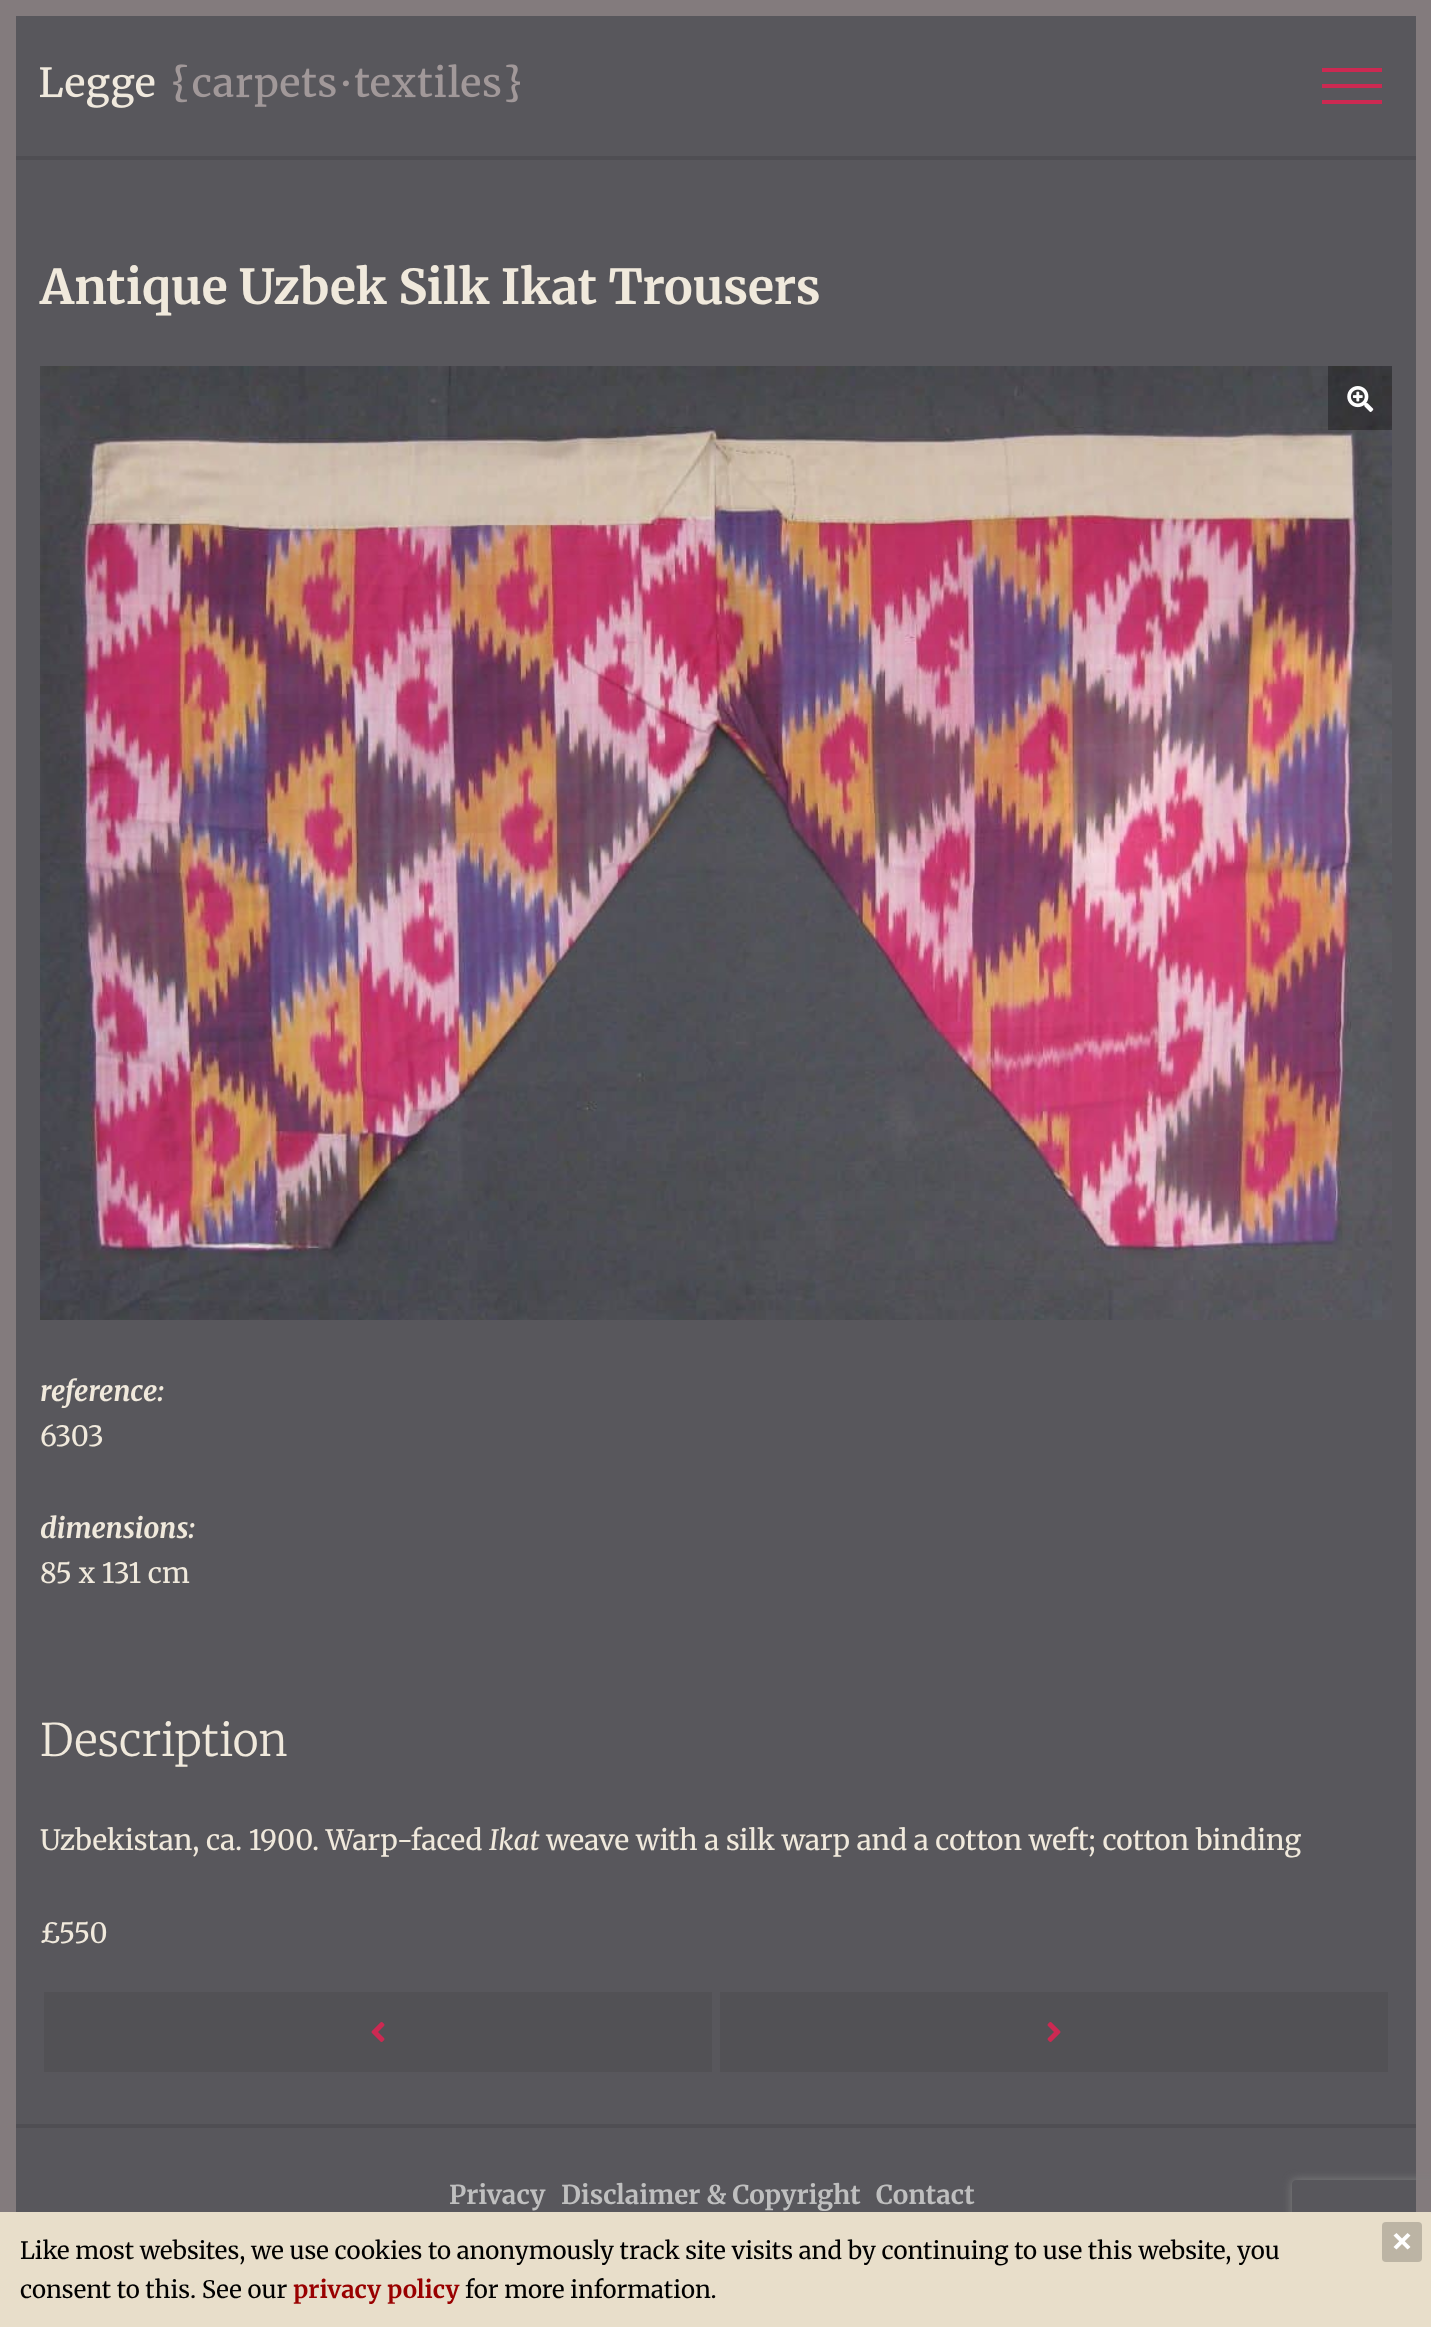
<!DOCTYPE html>
<meta charset="utf-8">
<style>body { margin: 0 } canvas { display: block }</style>
<canvas id="canvas" width="1431" height="2327"></canvas>
<img id="img1" src="img_01.png" hidden>
<img id="img2" src="img_02.png" hidden>
<img id="img3" src="img_03.png" hidden>
<img id="img4" src="img_04.png" hidden>
<img id="img5" src="img_05.png" hidden>
<script>
window.onload = function () {
	const canvas = document.getElementById("canvas");
	const ctx = canvas.getContext("2d");
	ctx.miterLimit = 4;
	ctx.fontKerning = "normal";
	function txt(s, x, y) {
		ctx.fillText(s, x, y);
	}
	function fill(x, y, w, h) {
		ctx.fillRect(x, y, w, h);
	}
	function round(x, y, w, h, r) {
		ctx.beginPath();
		ctx.roundRect(x, y, w, h, r);
		ctx.fill();
	}
	function img(id, x, y, w, h) {
		ctx.drawImage(document.getElementById(id), x, y, w, h);
	}

	ctx.fillStyle = "#58575C";
	fill(0, 0, 1431, 2327);
	ctx.strokeStyle = "#837B7D";
	ctx.lineWidth = 16;
	ctx.strokeRect(8, 8, 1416, 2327);
	ctx.fillStyle = "#4F4E53";
	fill(16, 156, 1400, 4);
	img("img1", 40, 64, 480, 44);
	ctx.fillStyle = "#CC2952";
	fill(1322, 68, 60, 4);
	fill(1322, 84, 60, 4);
	fill(1322, 100, 60, 4);
	img("img2", 40, 366, 1352, 954);
	ctx.fillStyle = "rgba(0, 0, 0, 0.3)";
	fill(1328, 366, 64, 64);
	img("img3", 1347, 386, 27, 26);
	ctx.fillStyle = "#525155";
	fill(44, 1992, 668, 80);
	img("img4", 371, 2022, 14, 20);
	fill(720, 1992, 668, 80);
	img("img5", 1047, 2022, 14, 20);
	ctx.fillStyle = "#4F4E53";
	fill(16, 2124, 1400, 4);
	ctx.save();
	ctx.beginPath();
	ctx.moveTo(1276, 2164);
	ctx.lineTo(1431, 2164);
	ctx.lineTo(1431, 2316);
	ctx.lineTo(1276, 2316);
	ctx.closePath();
	ctx.moveTo(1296, 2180);
	ctx.lineTo(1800, 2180);
	ctx.bezierCurveTo(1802, 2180, 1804, 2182, 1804, 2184);
	ctx.lineTo(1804, 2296);
	ctx.bezierCurveTo(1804, 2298, 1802, 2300, 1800, 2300);
	ctx.lineTo(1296, 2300);
	ctx.bezierCurveTo(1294, 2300, 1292, 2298, 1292, 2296);
	ctx.lineTo(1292, 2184);
	ctx.bezierCurveTo(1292, 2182, 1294, 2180, 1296, 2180);
	ctx.closePath();
	ctx.clip("evenodd");
	ctx.fillStyle = "#808080";
	ctx.filter = "blur(5px)";
	ctx.beginPath();
	ctx.roundRect(1292, 2180, 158, 120, 4);
	ctx.fill();
	ctx.filter = "none";
	ctx.restore();
	ctx.fillStyle = "#E8DECA";
	fill(0, 2212, 1431, 115);
	ctx.fillStyle = "#BCB4A4";
	round(1382, 2222, 40, 40, 4);
	ctx.fillStyle = "#FFFFFF";
	ctx.beginPath();
	ctx.moveTo(1396.5, 2233);
	ctx.lineTo(1410.5, 2247);
	ctx.lineTo(1407.5, 2249.5);
	ctx.lineTo(1393.5, 2235.5);
	ctx.closePath();
	ctx.fill();
	ctx.beginPath();
	ctx.moveTo(1407.5, 2233);
	ctx.lineTo(1410.5, 2235.5);
	ctx.lineTo(1396.5, 2249.5);
	ctx.lineTo(1393.5, 2247);
	ctx.closePath();
	ctx.fill();
	ctx.font = "bold 48px Merriweather";
	ctx.fillStyle = "#F0E9DC";
	txt("Antique Uzbek Silk Ikat Trousers", 40, 304);
	ctx.font = "italic bold 28px Merriweather";
	txt("reference:", 40, 1401);
	ctx.font = "28px Merriweather";
	txt("6303", 40, 1446);
	ctx.font = "italic bold 28px Merriweather";
	txt("dimensions:", 40, 1538);
	ctx.font = "28px Merriweather";
	txt("85 x 131 cm", 40, 1583);
	ctx.font = "300 44.75px Merriweather";
	txt("Description", 40, 1756);
	ctx.font = "28px Merriweather";
	txt("Uzbekistan, ca. 1900. Warp-faced", 40, 1850);
	ctx.font = "italic 28px Merriweather";
	txt("Ikat", 489, 1850);
	ctx.font = "28px Merriweather";
	txt("weave with a silk warp and a cotton weft; cotton binding", 546, 1850);
	txt("£550", 40, 1943);
	ctx.font = "bold 26px Merriweather";
	ctx.fillStyle = "#BFBFBF";
	txt("Privacy", 449, 2204);
	txt("Disclaimer & Copyright", 561, 2204);
	txt("Contact", 876, 2204);
	ctx.font = "24px Merriweather";
	ctx.fillStyle = "#000000";
	txt("Like most websites, we use cookies to anonymously track site visits and by continuing to use this website, you", 20, 2259);
	txt("consent to this. See our", 20, 2298);
	ctx.font = "bold 24px Merriweather";
	ctx.fillStyle = "#990000";
	txt("privacy policy", 293, 2298);
	ctx.font = "24px Merriweather";
	ctx.fillStyle = "#000000";
	txt("for more information.", 465, 2298);
};
</script>
